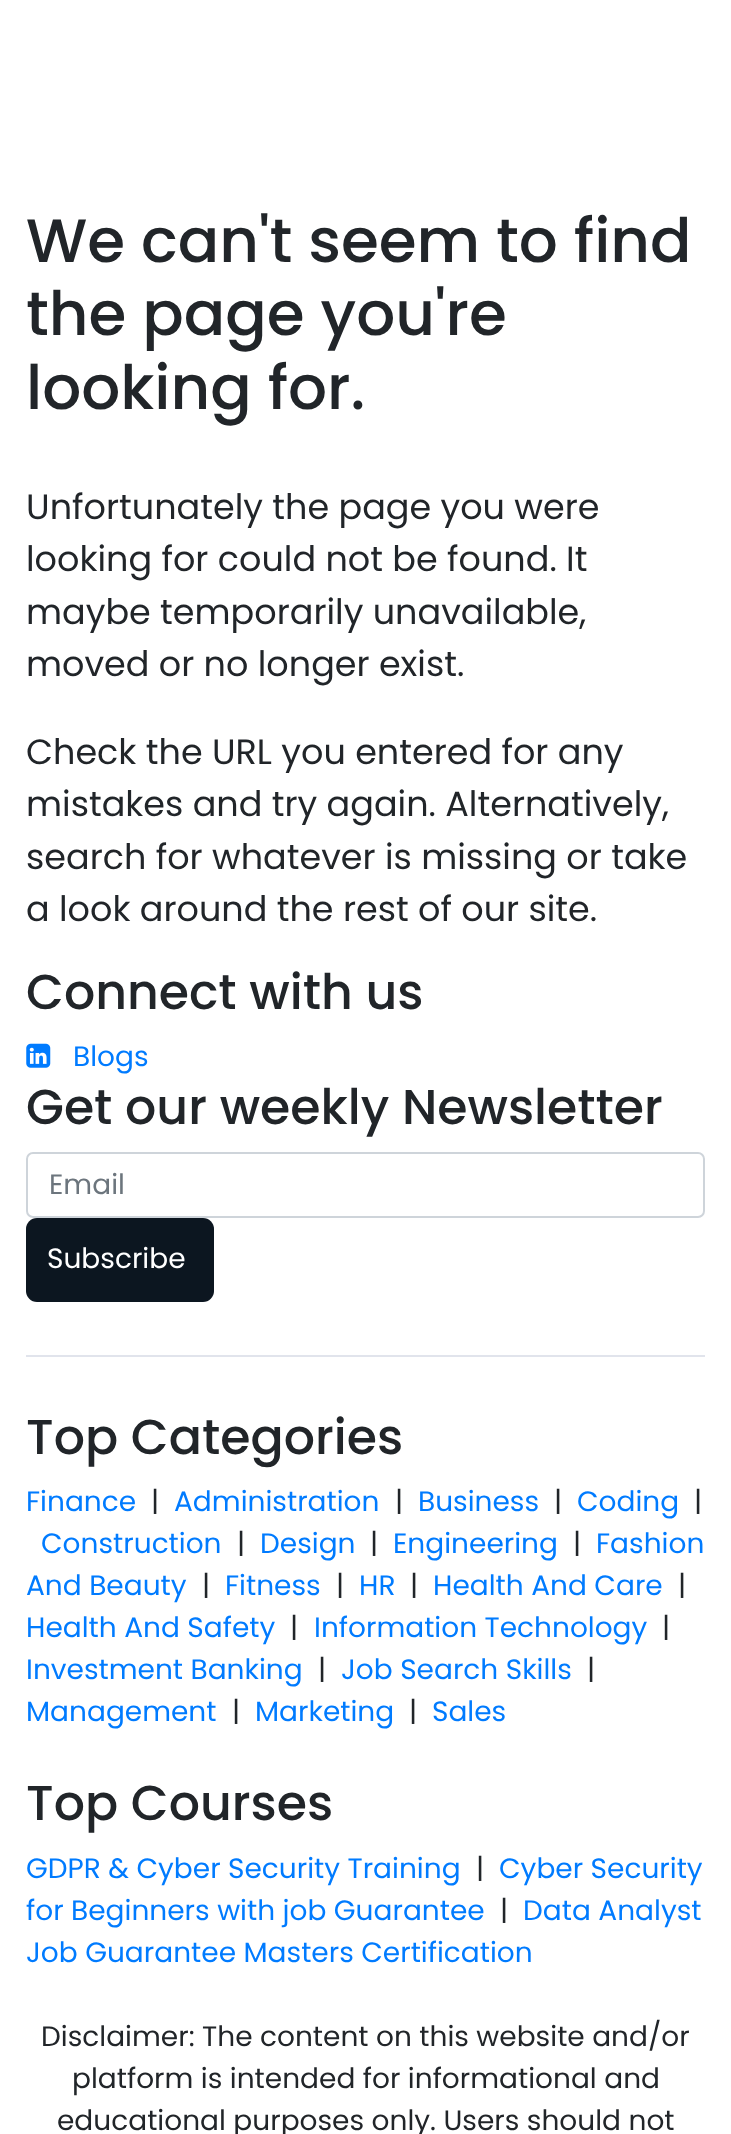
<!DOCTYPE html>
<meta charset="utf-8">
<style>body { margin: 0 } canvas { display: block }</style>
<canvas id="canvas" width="731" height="2134"></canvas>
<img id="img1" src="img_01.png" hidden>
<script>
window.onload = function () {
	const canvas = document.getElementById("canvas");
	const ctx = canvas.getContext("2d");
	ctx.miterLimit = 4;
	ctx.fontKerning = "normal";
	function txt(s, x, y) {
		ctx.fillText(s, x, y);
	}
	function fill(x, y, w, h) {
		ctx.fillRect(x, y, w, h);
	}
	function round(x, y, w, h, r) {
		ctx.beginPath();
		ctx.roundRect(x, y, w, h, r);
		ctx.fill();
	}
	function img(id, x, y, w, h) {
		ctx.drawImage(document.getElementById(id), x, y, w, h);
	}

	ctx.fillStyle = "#FFFFFF";
	fill(0, 0, 731, 2134);
	img("img1", 26, 1043, 25, 25);
	ctx.beginPath();
	ctx.roundRect(27, 1153, 677, 64, 6);
	ctx.strokeStyle = "#CED4DA";
	ctx.lineWidth = 2;
	ctx.stroke();
	ctx.fillStyle = "#0C1620";
	round(26, 1218, 188, 84, 11);
	ctx.fillStyle = "#E1E4EC";
	fill(26, 1355, 679, 2);
	ctx.font = "500 61.25px Poppins";
	ctx.fillStyle = "#212529";
	txt("We can't seem to find", 26, 262);
	txt("the page you're", 26, 335);
	txt("looking for.", 26, 409);
	ctx.font = "35px Poppins";
	txt("Unfortunately the page you were", 26, 519);
	txt("looking for could not be found. It", 26, 571);
	txt("maybe temporarily unavailable,", 26, 624);
	txt("moved or no longer exist.", 26, 676);
	txt("Check the URL you entered for any", 26, 764);
	txt("mistakes and try again. Alternatively,", 26, 816);
	txt("search for whatever is missing or take", 26, 869);
	txt("a look around the rest of our site.", 26, 921);
	ctx.font = "500 49px Poppins";
	txt("Connect with us", 26, 1009);
	ctx.font = "28px Poppins";
	ctx.fillStyle = "#007BFF";
	txt("Blogs", 73, 1066);
	ctx.font = "500 49px Poppins";
	ctx.fillStyle = "#212529";
	txt("Get our weekly Newsletter", 26, 1124);
	ctx.font = "28px Poppins";
	ctx.fillStyle = "#6C757D";
	txt("Email", 49, 1194);
	ctx.fillStyle = "#FFFFFF";
	txt("Subscribe", 47, 1268);
	ctx.font = "500 49px Poppins";
	ctx.fillStyle = "#212529";
	txt("Top Categories", 26, 1454);
	ctx.font = "28px Poppins";
	ctx.fillStyle = "#007BFF";
	txt("Finance", 26, 1511);
	ctx.fillStyle = "#212529";
	txt("|", 151, 1511);
	ctx.fillStyle = "#007BFF";
	txt("Administration", 174, 1511);
	ctx.fillStyle = "#212529";
	txt("|", 395, 1511);
	ctx.fillStyle = "#007BFF";
	txt("Business", 418, 1511);
	ctx.fillStyle = "#212529";
	txt("|", 554, 1511);
	ctx.fillStyle = "#007BFF";
	txt("Coding", 577, 1511);
	ctx.fillStyle = "#212529";
	txt("|", 694, 1511);
	ctx.fillStyle = "#007BFF";
	txt("Construction", 41, 1553);
	ctx.fillStyle = "#212529";
	txt("|", 237, 1553);
	ctx.fillStyle = "#007BFF";
	txt("Design", 260, 1553);
	ctx.fillStyle = "#212529";
	txt("|", 370, 1553);
	ctx.fillStyle = "#007BFF";
	txt("Engineering", 393, 1553);
	ctx.fillStyle = "#212529";
	txt("|", 573, 1553);
	ctx.fillStyle = "#007BFF";
	txt("Fashion", 596, 1553);
	txt("And Beauty", 26, 1595);
	ctx.fillStyle = "#212529";
	txt("|", 202, 1595);
	ctx.fillStyle = "#007BFF";
	txt("Fitness", 225, 1595);
	ctx.fillStyle = "#212529";
	txt("|", 336, 1595);
	ctx.fillStyle = "#007BFF";
	txt("HR", 359, 1595);
	ctx.fillStyle = "#212529";
	txt("|", 410, 1595);
	ctx.fillStyle = "#007BFF";
	txt("Health And Care", 433, 1595);
	ctx.fillStyle = "#212529";
	txt("|", 678, 1595);
	ctx.fillStyle = "#007BFF";
	txt("Health And Safety", 26, 1637);
	ctx.fillStyle = "#212529";
	txt("|", 290, 1637);
	ctx.fillStyle = "#007BFF";
	txt("Information Technology", 314, 1637);
	ctx.fillStyle = "#212529";
	txt("|", 662, 1637);
	ctx.fillStyle = "#007BFF";
	txt("Investment Banking", 26, 1679);
	ctx.fillStyle = "#212529";
	txt("|", 318, 1679);
	ctx.fillStyle = "#007BFF";
	txt("Job Search Skills", 341, 1679);
	ctx.fillStyle = "#212529";
	txt("|", 587, 1679);
	ctx.fillStyle = "#007BFF";
	txt("Management", 26, 1721);
	ctx.fillStyle = "#212529";
	txt("|", 232, 1721);
	ctx.fillStyle = "#007BFF";
	txt("Marketing", 255, 1721);
	ctx.fillStyle = "#212529";
	txt("|", 409, 1721);
	ctx.fillStyle = "#007BFF";
	txt("Sales", 432, 1721);
	ctx.font = "500 49px Poppins";
	ctx.fillStyle = "#212529";
	txt("Top Courses", 26, 1820);
	ctx.font = "28px Poppins";
	ctx.fillStyle = "#007BFF";
	txt("GDPR & Cyber Security Training", 26, 1878);
	ctx.fillStyle = "#212529";
	txt("|", 476, 1878);
	ctx.fillStyle = "#007BFF";
	txt("Cyber Security", 499, 1878);
	txt("for Beginners with job Guarantee", 26, 1920);
	ctx.fillStyle = "#212529";
	txt("|", 500, 1920);
	ctx.fillStyle = "#007BFF";
	txt("Data Analyst", 523, 1920);
	txt("Job Guarantee Masters Certification", 26, 1962);
	ctx.fillStyle = "#212529";
	txt("Disclaimer: The content on this website and/or", 41, 2046);
	txt("platform is intended for informational and", 72, 2088);
	txt("educational purposes only. Users should not", 57, 2130);
};
</script>
